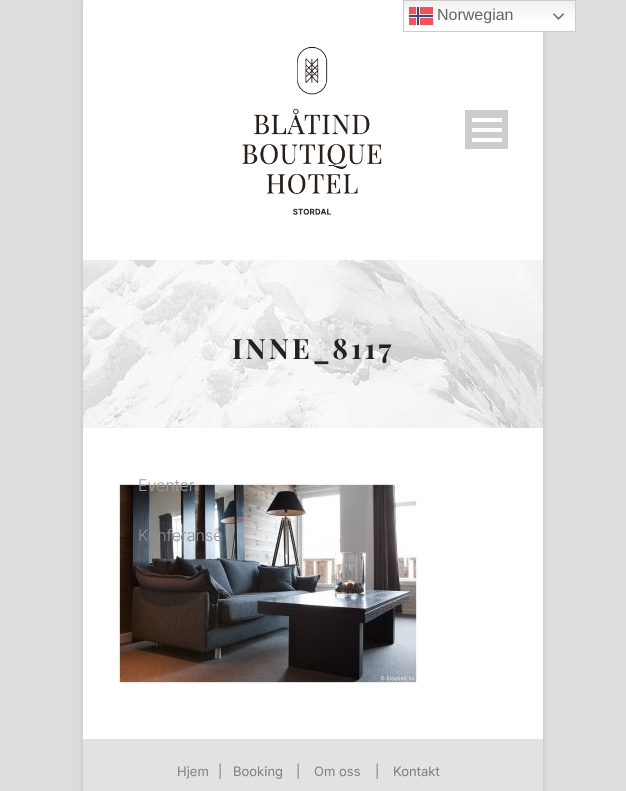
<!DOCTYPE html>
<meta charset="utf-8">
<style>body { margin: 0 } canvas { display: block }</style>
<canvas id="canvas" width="626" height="791"></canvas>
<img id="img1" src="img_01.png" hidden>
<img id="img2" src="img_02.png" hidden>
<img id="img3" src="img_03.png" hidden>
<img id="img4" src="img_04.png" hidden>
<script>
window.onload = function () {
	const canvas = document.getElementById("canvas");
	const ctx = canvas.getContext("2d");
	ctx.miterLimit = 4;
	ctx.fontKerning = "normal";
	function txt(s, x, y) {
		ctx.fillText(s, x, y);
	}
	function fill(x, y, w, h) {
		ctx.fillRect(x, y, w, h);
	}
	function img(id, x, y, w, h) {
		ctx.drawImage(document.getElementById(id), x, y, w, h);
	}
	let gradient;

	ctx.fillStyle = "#DDDDDD";
	fill(0, 0, 626, 791);
	ctx.fillStyle = "rgba(0, 0, 0, 0.15)";
	ctx.filter = "blur(2.5px)";
	ctx.beginPath();
	ctx.rect(83, 1, 460, 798);
	ctx.fill();
	ctx.filter = "none";
	ctx.fillStyle = "#FFFFFF";
	fill(83, 0, 460, 739);
	gradient = ctx.createLinearGradient(490, 0, 490, 32);
	gradient.addColorStop(0, "#EFEFEF");
	gradient.addColorStop(0.7, "#FFFFFF");
	ctx.fillStyle = gradient;
	fill(404, 1, 171, 30);
	gradient = ctx.createLinearGradient(490, 0, 490, 32);
	gradient.addColorStop(0, "#EF5254");
	gradient.addColorStop(0.7, "#F25557");
	ctx.fillStyle = gradient;
	fill(409, 7, 24, 18);
	gradient = ctx.createLinearGradient(490, 0, 490, 32);
	gradient.addColorStop(0, "#FCDCDD");
	gradient.addColorStop(0.7, "#FCDDDD");
	ctx.fillStyle = gradient;
	fill(409, 14, 24, 4);
	ctx.strokeStyle = "#CCCCCC";
	ctx.strokeRect(403.5, 0.5, 172, 31);
	ctx.fillStyle = "#FCDDDD";
	fill(416, 7, 4, 18);
	ctx.fillStyle = "#324C7F";
	fill(417, 7, 2, 18);
	img("img1", 553, 13, 11, 7);
	ctx.fillStyle = "#FEF8F8";
	fill(416, 14, 4, 4);
	ctx.fillStyle = "#335285";
	fill(417, 14, 2, 4);
	ctx.fillStyle = "#325285";
	fill(409, 15, 24, 2);
	img("img2", 83, 260, 460, 168);
	img("img3", 242, 46, 140, 169);
	ctx.fillStyle = "#CCCCCC";
	fill(465, 110, 43, 39);
	ctx.fillStyle = "#FFFFFF";
	fill(472, 138, 30, 4);
	fill(472, 128, 30, 4);
	fill(472, 118, 30, 4);
	img("img4", 118, 483, 300, 201);
	ctx.fillStyle = "#E2E2E2";
	fill(83, 739, 460, 52);
	ctx.font = "16px Liberation Sans";
	ctx.fillStyle = "#666666";
	txt("Norwegian", 437, 20);
	ctx.letterSpacing = "3px";
	ctx.font = "bold 28px Playfair Display";
	ctx.fillStyle = "#232323";
	txt("INNE_8117", 232, 359);
	ctx.letterSpacing = "0px";
	ctx.font = "300 16px Inter";
	ctx.fillStyle = "#9D9B99";
	txt("Eventer", 138, 491);
	ctx.fillStyle = "#8F949A";
	txt("Konferanse", 138, 541);
	ctx.font = "13px Inter";
	ctx.fillStyle = "#7F7F7F";
	txt("Hjem", 177, 776);
	txt("|", 218, 776);
	txt("Booking", 233, 776);
	txt("|", 296, 776);
	txt("Om oss", 314, 776);
	txt("|", 375, 776);
	txt("Kontakt", 393, 776);
};
</script>
